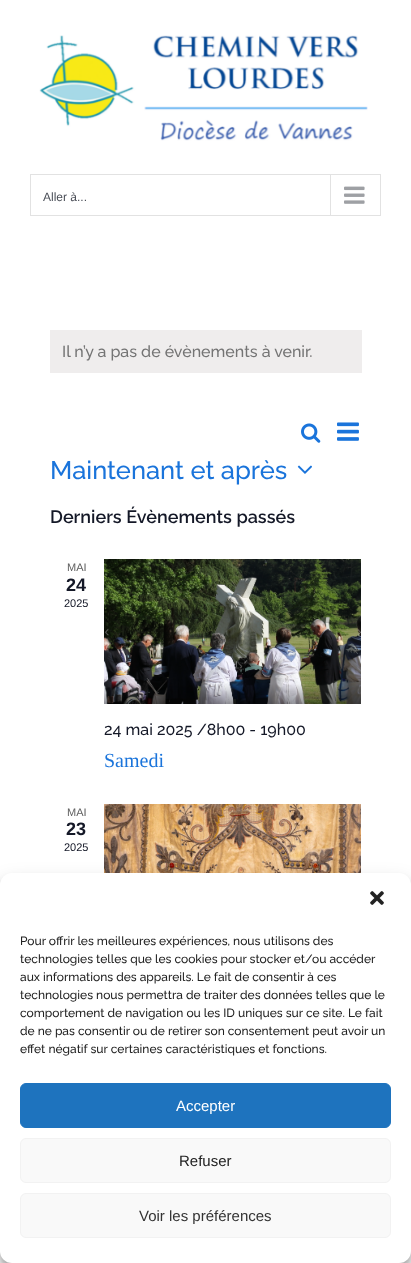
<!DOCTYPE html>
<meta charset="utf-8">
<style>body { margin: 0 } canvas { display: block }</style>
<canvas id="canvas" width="411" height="1263"></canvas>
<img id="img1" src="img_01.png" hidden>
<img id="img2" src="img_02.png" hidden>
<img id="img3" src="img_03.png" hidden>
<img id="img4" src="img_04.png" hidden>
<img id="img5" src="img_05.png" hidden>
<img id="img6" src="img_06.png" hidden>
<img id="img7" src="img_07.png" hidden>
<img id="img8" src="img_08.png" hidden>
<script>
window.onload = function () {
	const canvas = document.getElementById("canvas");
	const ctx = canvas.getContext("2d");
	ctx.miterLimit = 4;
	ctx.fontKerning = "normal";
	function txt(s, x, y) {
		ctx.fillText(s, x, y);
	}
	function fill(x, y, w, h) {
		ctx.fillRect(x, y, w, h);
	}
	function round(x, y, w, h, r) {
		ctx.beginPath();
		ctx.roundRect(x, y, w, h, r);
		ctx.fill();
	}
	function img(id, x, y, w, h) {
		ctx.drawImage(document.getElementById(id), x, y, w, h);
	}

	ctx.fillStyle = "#FFFFFF";
	fill(0, 0, 411, 1263);
	img("img1", 39, 35, 329, 106);
	ctx.strokeStyle = "#E2E2E2";
	ctx.strokeRect(30.5, 174.5, 350, 41);
	ctx.fillStyle = "#E2E2E2";
	fill(330, 175, 1, 40);
	img("img2", 344, 186, 21, 18);
	ctx.fillStyle = "#EFEDED";
	fill(50, 330, 312, 43);
	img("img3", 301, 423, 20, 20);
	img("img4", 337, 422, 22, 19);
	img("img5", 297, 465, 15, 9);
	img("img6", 104, 559, 257, 145);
	img("img7", 104, 804, 257, 69);
	ctx.fillStyle = "rgba(0, 0, 0, 0.23)";
	ctx.filter = "blur(3px)";
	ctx.beginPath();
	ctx.roundRect(0, 879, 411, 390, 12);
	ctx.fill();
	ctx.filter = "none";
	ctx.fillStyle = "rgba(0, 0, 0, 0.19)";
	ctx.filter = "blur(10px)";
	ctx.beginPath();
	ctx.roundRect(0, 883, 411, 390, 12);
	ctx.fill();
	ctx.filter = "none";
	ctx.fillStyle = "#FFFFFF";
	round(0, 873, 411, 390, 12);
	img("img8", 370, 891, 14, 14);
	ctx.fillStyle = "#1E73BE";
	ctx.beginPath();
	ctx.roundRect(20.5, 1083.5, 370, 44, 5.5);
	ctx.fill();
	ctx.strokeStyle = "#1E73BE";
	ctx.stroke();
	ctx.fillStyle = "#F9F9F9";
	ctx.beginPath();
	ctx.roundRect(20.5, 1138.5, 370, 44, 5.5);
	ctx.fill();
	ctx.strokeStyle = "#F2F2F2";
	ctx.stroke();
	ctx.beginPath();
	ctx.roundRect(20.5, 1193.5, 370, 44, 5.5);
	ctx.fill();
	ctx.stroke();
	ctx.font = "12px Liberation Sans";
	ctx.fillStyle = "#4A4E57";
	txt("Aller à...", 43, 201);
	ctx.font = "500 16px Raleway";
	ctx.fillStyle = "#747474";
	txt("Il n’y a pas de évènements à venir.", 62, 357);
	ctx.font = "500 25.5px Raleway";
	ctx.fillStyle = "#1A74DB";
	txt("Maintenant et après", 50, 479);
	ctx.font = "600 18px Raleway";
	ctx.fillStyle = "#141827";
	txt("Derniers Évènements passés", 50, 523);
	ctx.font = "11px Liberation Sans";
	ctx.fillStyle = "#5D5D5D";
	txt("MAI", 67, 571);
	ctx.font = "bold 18px Liberation Sans";
	ctx.fillStyle = "#141827";
	txt("24", 66, 591);
	ctx.font = "11px Liberation Sans";
	txt("2025", 64, 607);
	ctx.font = "500 16px Raleway";
	txt("24 mai 2025 /8h00 - 19h00", 104, 735);
	ctx.font = "20px Liberation Serif";
	ctx.fillStyle = "#1A74DB";
	txt("Samedi", 104, 767);
	ctx.font = "11px Liberation Sans";
	ctx.fillStyle = "#5D5D5D";
	txt("MAI", 67, 816);
	ctx.font = "bold 18px Liberation Sans";
	ctx.fillStyle = "#141827";
	txt("23", 66, 835);
	ctx.font = "11px Liberation Sans";
	txt("2025", 64, 851);
	ctx.font = "500 12px Raleway";
	ctx.fillStyle = "#222222";
	txt("Pour offrir les meilleures expériences, nous utilisons des", 20, 945);
	txt("technologies telles que les cookies pour stocker et/ou accéder", 20, 963);
	txt("aux informations des appareils. Le fait de consentir à ces", 20, 981);
	txt("technologies nous permettra de traiter des données telles que le", 20, 999);
	txt("comportement de navigation ou les ID uniques sur ce site. Le fait", 20, 1017);
	txt("de ne pas consentir ou de retirer son consentement peut avoir un", 20, 1035);
	txt("effet négatif sur certaines caractéristiques et fonctions.", 20, 1053);
	ctx.font = "15px Liberation Sans";
	ctx.fillStyle = "#FFFFFF";
	txt("Accepter", 176, 1111);
	ctx.fillStyle = "#222222";
	txt("Refuser", 179, 1166);
	ctx.fillStyle = "#333333";
	txt("Voir les préférences", 139, 1221);
};
</script>
